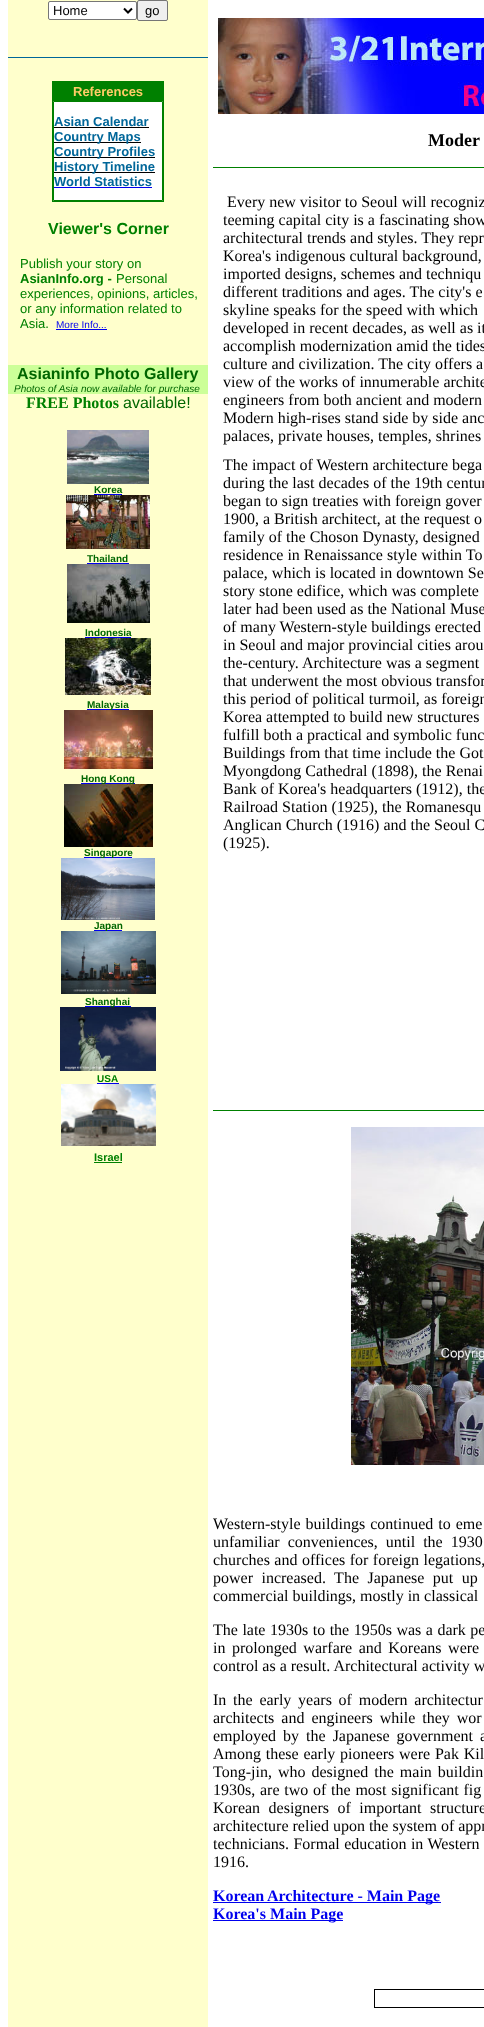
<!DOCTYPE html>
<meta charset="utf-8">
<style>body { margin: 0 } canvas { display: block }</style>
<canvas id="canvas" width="484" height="2027"></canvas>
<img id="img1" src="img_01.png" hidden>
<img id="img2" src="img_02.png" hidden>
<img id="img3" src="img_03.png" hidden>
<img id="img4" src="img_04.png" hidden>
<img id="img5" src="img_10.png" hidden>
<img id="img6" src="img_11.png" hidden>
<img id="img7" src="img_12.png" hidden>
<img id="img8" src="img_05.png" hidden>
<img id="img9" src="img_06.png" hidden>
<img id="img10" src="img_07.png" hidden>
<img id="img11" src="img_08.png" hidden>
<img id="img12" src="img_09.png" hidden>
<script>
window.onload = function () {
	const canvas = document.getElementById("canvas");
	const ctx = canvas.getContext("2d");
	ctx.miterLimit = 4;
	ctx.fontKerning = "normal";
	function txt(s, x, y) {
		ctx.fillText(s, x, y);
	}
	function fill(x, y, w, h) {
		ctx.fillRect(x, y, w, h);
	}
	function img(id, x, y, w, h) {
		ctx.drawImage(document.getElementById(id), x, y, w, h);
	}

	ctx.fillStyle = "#FFFFFF";
	fill(0, 0, 484, 2027);
	ctx.fillStyle = "#FFFFCC";
	fill(8, 0, 200, 2027);
	ctx.fillStyle = "#FFFFFF";
	ctx.beginPath();
	ctx.roundRect(48.5, 1.5, 88, 18, 1.5);
	ctx.fill();
	ctx.strokeStyle = "#767676";
	ctx.stroke();
	ctx.beginPath();
	ctx.moveTo(124, 8.5);
	ctx.lineTo(128, 12.5);
	ctx.lineTo(132, 8.5);
	ctx.strokeStyle = "#000000";
	ctx.lineWidth = 2;
	ctx.stroke();
	ctx.fillStyle = "#EFEFEF";
	ctx.beginPath();
	ctx.roundRect(137.5, 0.5, 30, 20, 1.5);
	ctx.fill();
	ctx.strokeStyle = "#767676";
	ctx.lineWidth = 1;
	ctx.stroke();
	ctx.fillStyle = "#006699";
	fill(8, 57, 200, 1);
	ctx.strokeStyle = "#008000";
	ctx.strokeRect(52.5, 81.5, 111, 120);
	ctx.fillStyle = "#008000";
	fill(53, 82, 110, 19);
	ctx.fillStyle = "#FFFFFF";
	ctx.beginPath();
	ctx.rect(53.5, 101.5, 109, 99);
	ctx.fill();
	ctx.stroke();
	ctx.fillStyle = "#000000";
	fill(54, 127, 95, 1);
	fill(54, 142, 87, 1);
	fill(54, 157, 101, 1);
	fill(54, 172, 101, 1);
	ctx.fillStyle = "#0000EE";
	fill(54, 187, 98, 1);
	fill(56, 329, 51, 1);
	ctx.fillStyle = "#CCFF99";
	fill(8, 365, 200, 29);
	img("img1", 67, 430, 82, 54);
	ctx.fillStyle = "#0000EE";
	fill(94, 494, 28, 1);
	img("img2", 66, 495, 84, 54);
	fill(87, 563, 42, 1);
	img("img3", 67, 564, 83, 59);
	fill(85, 637, 46, 1);
	img("img4", 65, 638, 86, 57);
	fill(87, 709, 42, 1);
	fill(81, 783, 54, 1);
	fill(84, 857, 48, 1);
	fill(94, 930, 28, 1);
	fill(85, 1006, 46, 1);
	fill(97, 1083, 22, 1);
	img("img5", 61, 1084, 95, 62);
	ctx.fillStyle = "#008000";
	fill(94, 1162, 28, 1);
	img("img6", 218, 18, 266, 96);
	fill(213, 167, 271, 1);
	fill(213, 1110, 271, 1);
	img("img7", 351, 1127, 133, 338);
	ctx.fillStyle = "#0000EE";
	fill(213, 1902, 228, 1);
	fill(213, 1920, 130, 1);
	ctx.strokeStyle = "#000000";
	ctx.strokeRect(374.5, 1989.5, 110, 18);
	ctx.font = "13px Liberation Sans";
	ctx.fillStyle = "#000000";
	txt("Home", 53, 15);
	txt("go", 145, 15);
	ctx.font = "bold 13px Liberation Sans";
	ctx.fillStyle = "#FFCC66";
	txt("References", 73, 96);
	ctx.fillStyle = "#006699";
	txt("Asian Calendar", 54, 126);
	txt("Country Maps", 54, 141);
	txt("Country Profiles", 54, 156);
	txt("History Timeline", 54, 171);
	txt("World Statistics", 54, 186);
	ctx.font = "bold 16px Liberation Sans";
	ctx.fillStyle = "#008000";
	txt("Viewer's Corner", 48, 234);
	ctx.font = "13px Liberation Sans";
	txt("Publish your story on", 20, 268);
	ctx.font = "bold 13px Liberation Sans";
	txt("AsianInfo.org -", 20, 283);
	ctx.font = "13px Liberation Sans";
	txt("Personal", 116, 283);
	txt("experiences, opinions, articles,", 20, 298);
	txt("or any information related to", 20, 313);
	txt("Asia.", 20, 328);
	ctx.font = "10px Liberation Sans";
	ctx.fillStyle = "#0000EE";
	txt("More Info...", 56, 328);
	ctx.font = "bold 16px Liberation Sans";
	ctx.fillStyle = "#006600";
	txt("Asianinfo Photo Gallery", 17, 379);
	ctx.font = "italic 10px Liberation Sans";
	txt("Photos of Asia now available for purchase", 14, 392);
	ctx.font = "bold 16px Liberation Serif";
	ctx.fillStyle = "#008000";
	txt("FREE Photos", 26, 408);
	ctx.font = "16px Liberation Sans";
	ctx.fillStyle = "#006600";
	txt("available!", 123, 408);
	ctx.font = "bold 10px Liberation Sans";
	txt("Korea", 94, 493);
	txt("Thailand", 87, 562);
	txt("Indonesia", 85, 636);
	txt("Malaysia", 87, 708);
	img("img8", 64, 710, 89, 59);
	txt("Hong Kong", 81, 782);
	img("img9", 64, 784, 89, 63);
	txt("Singapore", 84, 856);
	img("img10", 61, 858, 94, 62);
	txt("Japan", 94, 929);
	img("img11", 61, 931, 95, 63);
	txt("Shanghai", 85, 1005);
	img("img12", 60, 1007, 96, 64);
	ctx.fillStyle = "#008000";
	txt("USA", 97, 1082);
	ctx.font = "bold 11px Liberation Sans";
	txt("Israel", 94, 1161);
	ctx.font = "bold 18px Liberation Serif";
	ctx.fillStyle = "#000000";
	txt("Moder", 428, 146);
	ctx.font = "16px Liberation Serif";
	txt("Every new visitor to Seoul will recogniz", 227, 207);
	txt("teeming capital city is a fascinating show", 223, 225);
	txt("architectural trends and styles. They repr", 223, 243);
	txt("Korea's indigenous cultural background,", 223, 261);
	txt("imported designs, schemes and techniqu", 223, 279);
	txt("different traditions and ages. The city's e", 223, 297);
	txt("skyline speaks for the speed with which", 223, 315);
	txt("developed in recent decades, as well as it", 223, 333);
	txt("accomplish modernization amid the tides", 223, 351);
	txt("culture and civilization. The city offers a", 223, 369);
	txt("view of the works of innumerable archite", 223, 387);
	txt("engineers from both ancient and modern", 223, 405);
	txt("Modern high-rises stand side by side anc", 223, 423);
	txt("palaces, private houses, temples, shrines", 223, 441);
	txt("The impact of Western architecture bega", 223, 470);
	txt("during the last decades of the 19th centur", 223, 488);
	txt("began to sign treaties with foreign gover", 223, 506);
	txt("1900, a British architect, at the request o", 223, 524);
	txt("family of the Choson Dynasty, designed", 223, 542);
	txt("residence in Renaissance style within To", 223, 560);
	txt("palace, which is located in downtown Se", 223, 578);
	txt("story stone edifice, which was complete", 223, 596);
	txt("later had been used as the National Muse", 223, 614);
	txt("of many Western-style buildings erected", 223, 632);
	txt("in Seoul and major provincial cities arou", 223, 650);
	txt("the-century. Architecture was a segment", 223, 668);
	txt("that underwent the most obvious transfor", 223, 686);
	txt("this period of political turmoil, as foreign", 223, 704);
	txt("Korea attempted to build new structures", 223, 722);
	txt("fulfill both a practical and symbolic func", 223, 740);
	txt("Buildings from that time include the Got", 223, 758);
	txt("Myongdong Cathedral (1898), the Renai", 223, 776);
	txt("Bank of Korea's headquarters (1912), the", 223, 794);
	txt("Railroad Station (1925), the Romanesqu", 223, 812);
	txt("Anglican Church (1916) and the Seoul C", 223, 830);
	txt("(1925).", 223, 848);
	ctx.wordSpacing = "1px";
	txt("Western-style buildings continued to eme", 213, 1529);
	ctx.wordSpacing = "4px";
	txt("unfamiliar conveniences, until the 1930", 213, 1547);
	ctx.wordSpacing = "0.5px";
	txt("churches and offices for foreign legations,", 213, 1565);
	ctx.wordSpacing = "4.5px";
	txt("power increased. The Japanese put up", 213, 1583);
	ctx.wordSpacing = "0px";
	txt("commercial buildings, mostly in classical", 213, 1601);
	ctx.wordSpacing = "0.5px";
	txt("The late 1930s to the 1950s was a dark pe", 213, 1635);
	ctx.wordSpacing = "2.5px";
	txt("in prolonged warfare and Koreans were", 213, 1653);
	ctx.wordSpacing = "0px";
	txt("control as a result. Architectural activity w", 213, 1671);
	ctx.wordSpacing = "2.75px";
	txt("In the early years of modern architectur", 213, 1705);
	ctx.wordSpacing = "3px";
	txt("architects and engineers while they wor", 213, 1723);
	txt("employed by the Japanese government a", 213, 1741);
	ctx.wordSpacing = "0.75px";
	txt("Among these early pioneers were Pak Kil", 213, 1759);
	ctx.wordSpacing = "2px";
	txt("Tong-jin, who designed the main buildin", 213, 1777);
	ctx.wordSpacing = "0.75px";
	txt("1930s, are two of the most significant fig", 213, 1795);
	ctx.wordSpacing = "4.5px";
	txt("Korean designers of important structure", 213, 1813);
	ctx.wordSpacing = "0px";
	txt("architecture relied upon the system of appr", 213, 1831);
	ctx.wordSpacing = "0.5px";
	txt("technicians. Formal education in Western", 213, 1849);
	ctx.wordSpacing = "0px";
	txt("1916.", 213, 1867);
	ctx.font = "bold 16px Liberation Serif";
	ctx.fillStyle = "#0000EE";
	txt("Korean", 213, 1901);
	txt("Architecture - Main Page", 267, 1901);
	txt("Korea's Main Page", 213, 1919);
};
</script>
